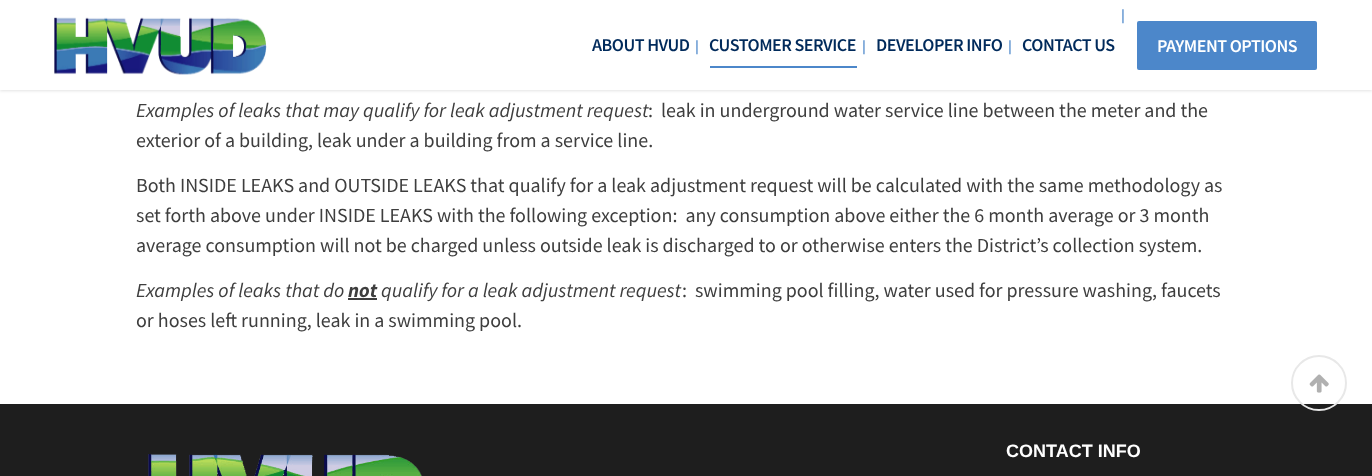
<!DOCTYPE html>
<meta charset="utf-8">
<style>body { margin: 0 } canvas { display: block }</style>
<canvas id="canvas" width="1372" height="476"></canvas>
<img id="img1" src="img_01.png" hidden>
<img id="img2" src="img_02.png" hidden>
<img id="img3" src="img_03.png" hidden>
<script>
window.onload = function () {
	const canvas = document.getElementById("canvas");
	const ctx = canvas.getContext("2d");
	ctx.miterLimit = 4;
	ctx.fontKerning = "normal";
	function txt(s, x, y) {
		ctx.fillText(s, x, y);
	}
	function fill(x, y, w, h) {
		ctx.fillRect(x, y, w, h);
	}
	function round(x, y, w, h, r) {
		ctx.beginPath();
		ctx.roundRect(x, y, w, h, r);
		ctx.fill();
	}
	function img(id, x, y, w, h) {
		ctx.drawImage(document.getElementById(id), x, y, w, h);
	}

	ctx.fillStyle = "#FFFFFF";
	fill(0, 0, 1372, 476);
	ctx.fillStyle = "rgba(0, 0, 0, 0.11)";
	ctx.filter = "blur(1.5px)";
	ctx.beginPath();
	ctx.rect(0, 1, 1372, 90);
	ctx.fill();
	ctx.filter = "none";
	ctx.fillStyle = "#FFFFFF";
	fill(0, 0, 1372, 90);
	img("img1", 54, 17, 213, 58);
	ctx.fillStyle = "#4C87CA";
	fill(710, 66, 147, 2);
	round(1137, 21, 180, 49, 2);
	ctx.fillStyle = "#3E3E3E";
	fill(348, 298, 29, 2);
	ctx.fillStyle = "#1E1E1E";
	fill(0, 404, 1372, 72);
	ctx.beginPath();
	ctx.arc(1319, 383, 27, 0, Math.PI * 2);
	ctx.strokeStyle = "#E8E8E8";
	ctx.lineWidth = 2;
	ctx.stroke();
	img("img2", 1309, 374, 20, 19);
	img("img3", 148, 454, 274, 22);
	ctx.font = "15px Liberation Sans";
	ctx.fillStyle = "#4C87CA";
	txt("|", 1121, 20);
	ctx.letterSpacing = "-0.5px";
	ctx.font = "600 18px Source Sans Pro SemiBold";
	ctx.fillStyle = "#002A5B";
	txt("ABOUT HVUD", 592, 51);
	ctx.letterSpacing = "0px";
	ctx.font = "15px Liberation Sans";
	ctx.fillStyle = "#4C87CA";
	txt("|", 695, 51);
	ctx.letterSpacing = "-0.5px";
	ctx.font = "600 18px Source Sans Pro SemiBold";
	ctx.fillStyle = "#002A5B";
	txt("CUSTOMER SERVICE", 709, 51);
	ctx.letterSpacing = "0px";
	ctx.font = "15px Liberation Sans";
	ctx.fillStyle = "#4C87CA";
	txt("|", 862, 51);
	ctx.letterSpacing = "-0.5px";
	ctx.font = "600 18px Source Sans Pro SemiBold";
	ctx.fillStyle = "#002A5B";
	txt("DEVELOPER INFO", 876, 51);
	ctx.letterSpacing = "0px";
	ctx.font = "15px Liberation Sans";
	ctx.fillStyle = "#4C87CA";
	txt("|", 1008, 51);
	ctx.letterSpacing = "-0.5px";
	ctx.font = "600 18px Source Sans Pro SemiBold";
	ctx.fillStyle = "#002A5B";
	txt("CONTACT US", 1022, 51);
	ctx.fillStyle = "#FFFFFF";
	txt("PAYMENT OPTIONS", 1157, 52);
	ctx.letterSpacing = "0px";
	ctx.font = "italic 20px Source Sans Pro";
	ctx.fillStyle = "#3E3E3E";
	txt("Examples of leaks that may qualify for leak adjustment request", 136, 117);
	ctx.font = "20px Source Sans Pro";
	txt(":  leak in underground water service line between the meter and the", 648, 117);
	txt("exterior of a building, leak under a building from a service line.", 136, 147);
	txt("Both INSIDE LEAKS and OUTSIDE LEAKS that qualify for a leak adjustment request will be calculated with the same methodology as", 136, 192);
	txt("set forth above under INSIDE LEAKS with the following exception:  any consumption above either the 6 month average or 3 month", 136, 222);
	txt("average consumption will not be charged unless outside leak is discharged to or otherwise enters the District’s collection system.", 136, 252);
	ctx.font = "italic 20px Source Sans Pro";
	txt("Examples of leaks that do", 136, 297);
	ctx.font = "italic bold 20px Source Sans Pro";
	txt("not", 348, 297);
	ctx.font = "italic 20px Source Sans Pro";
	txt("qualify for a leak adjustment request", 381, 297);
	ctx.font = "20px Source Sans Pro";
	txt(":  swimming pool filling, water used for pressure washing, faucets", 682, 297);
	txt("or hoses left running, leak in a swimming pool.", 136, 327);
	ctx.font = "bold 18px Liberation Sans";
	ctx.fillStyle = "#FFFFFF";
	txt("CONTACT INFO", 1006, 457);
};
</script>
